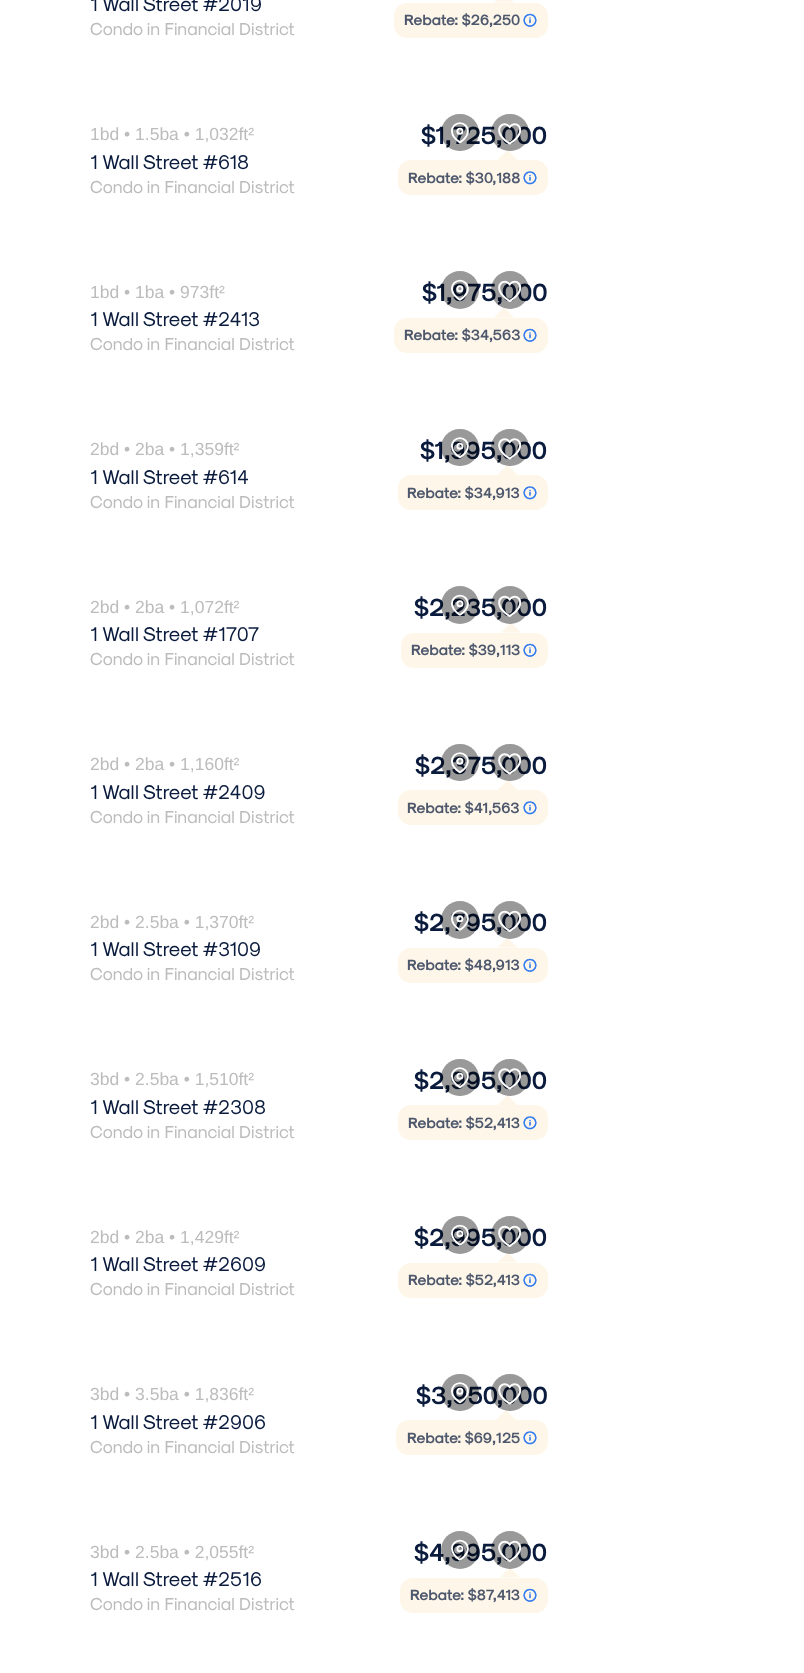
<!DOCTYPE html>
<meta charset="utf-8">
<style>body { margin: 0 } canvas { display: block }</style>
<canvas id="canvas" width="804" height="1673"></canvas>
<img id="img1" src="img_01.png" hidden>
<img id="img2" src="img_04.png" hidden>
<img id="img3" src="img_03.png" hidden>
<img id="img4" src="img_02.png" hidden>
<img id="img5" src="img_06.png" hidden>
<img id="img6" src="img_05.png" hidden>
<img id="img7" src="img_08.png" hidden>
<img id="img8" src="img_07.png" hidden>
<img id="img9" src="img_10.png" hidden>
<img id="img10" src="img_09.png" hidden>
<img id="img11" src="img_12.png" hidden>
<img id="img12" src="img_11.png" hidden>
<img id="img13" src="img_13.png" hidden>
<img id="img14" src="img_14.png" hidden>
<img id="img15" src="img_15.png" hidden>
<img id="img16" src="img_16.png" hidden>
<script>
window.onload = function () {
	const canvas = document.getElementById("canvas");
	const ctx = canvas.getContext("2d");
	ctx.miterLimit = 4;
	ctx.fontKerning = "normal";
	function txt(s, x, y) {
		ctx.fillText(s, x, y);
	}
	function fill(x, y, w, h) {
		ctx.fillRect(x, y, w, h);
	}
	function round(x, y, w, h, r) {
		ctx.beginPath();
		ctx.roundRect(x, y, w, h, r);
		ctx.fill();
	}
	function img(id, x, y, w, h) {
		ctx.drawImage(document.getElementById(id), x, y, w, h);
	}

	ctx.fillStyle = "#FFFFFF";
	fill(0, 0, 804, 1673);
	ctx.fillStyle = "#FEF6E9";
	ctx.beginPath();
	ctx.moveTo(514, 2.5);
	ctx.lineTo(494, 2.5);
	ctx.lineTo(504, -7.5);
	ctx.closePath();
	ctx.fill();
	round(394, 3, 154, 35, 13);
	img("img1", 523, 13, 14, 14);
	ctx.beginPath();
	ctx.moveTo(517.5, 160);
	ctx.lineTo(497.5, 160);
	ctx.lineTo(507.5, 150);
	ctx.closePath();
	ctx.fill();
	round(398, 160, 150, 35, 13);
	img("img2", 523, 171, 14, 14);
	ctx.beginPath();
	ctx.moveTo(514, 317.5);
	ctx.lineTo(494, 317.5);
	ctx.lineTo(504, 307.5);
	ctx.closePath();
	ctx.fill();
	round(394, 318, 154, 35, 13);
	img("img1", 523, 328, 14, 14);
	ctx.beginPath();
	ctx.moveTo(517.5, 475);
	ctx.lineTo(497.5, 475);
	ctx.lineTo(507.5, 465);
	ctx.closePath();
	ctx.fill();
	round(398, 475, 150, 35, 13);
	img("img2", 523, 486, 14, 14);
	ctx.beginPath();
	ctx.moveTo(521, 632.5);
	ctx.lineTo(501, 632.5);
	ctx.lineTo(511, 622.5);
	ctx.closePath();
	ctx.fill();
	round(401, 633, 147, 35, 13);
	img("img1", 523, 643, 14, 14);
	ctx.beginPath();
	ctx.moveTo(517.5, 790);
	ctx.lineTo(497.5, 790);
	ctx.lineTo(507.5, 780);
	ctx.closePath();
	ctx.fill();
	round(398, 790, 150, 35, 13);
	img("img2", 523, 801, 14, 14);
	ctx.beginPath();
	ctx.moveTo(517.5, 947.5);
	ctx.lineTo(497.5, 947.5);
	ctx.lineTo(507.5, 937.5);
	ctx.closePath();
	ctx.fill();
	round(398, 948, 150, 35, 13);
	img("img1", 523, 958, 14, 14);
	ctx.beginPath();
	ctx.moveTo(517.5, 1105);
	ctx.lineTo(497.5, 1105);
	ctx.lineTo(507.5, 1095);
	ctx.closePath();
	ctx.fill();
	round(398, 1105, 150, 35, 13);
	img("img2", 523, 1116, 14, 14);
	ctx.beginPath();
	ctx.moveTo(517.5, 1262.5);
	ctx.lineTo(497.5, 1262.5);
	ctx.lineTo(507.5, 1252.5);
	ctx.closePath();
	ctx.fill();
	round(398, 1263, 150, 35, 13);
	img("img1", 523, 1273, 14, 14);
	ctx.beginPath();
	ctx.moveTo(516, 1420);
	ctx.lineTo(496, 1420);
	ctx.lineTo(506, 1410);
	ctx.closePath();
	ctx.fill();
	round(396, 1420, 152, 35, 13);
	img("img2", 523, 1431, 14, 14);
	ctx.beginPath();
	ctx.moveTo(520, 1577.5);
	ctx.lineTo(500, 1577.5);
	ctx.lineTo(510, 1567.5);
	ctx.closePath();
	ctx.fill();
	round(400, 1578, 148, 35, 13);
	img("img1", 523, 1588, 14, 14);
	ctx.font = "20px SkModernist";
	ctx.fillStyle = "#0A1B3D";
	txt("1 Wall Street #2019", 90, 11);
	ctx.font = "17.5px SkModernist";
	ctx.fillStyle = "#BCBCBC";
	txt("Condo in Financial District", 90, 35);
	ctx.font = "bold 15px SkModernist";
	ctx.fillStyle = "#4E586D";
	txt("Rebate: $26,250", 404, 25);
	ctx.font = "17.5px Liberation Sans";
	ctx.fillStyle = "#BCBCBC";
	txt("1bd • 1.5ba • 1,032ft²", 90, 140);
	ctx.font = "20px SkModernist";
	ctx.fillStyle = "#0A1B3D";
	txt("1 Wall Street #618", 90, 169);
	ctx.font = "17.5px SkModernist";
	ctx.fillStyle = "#BCBCBC";
	txt("Condo in Financial District", 90, 193);
	ctx.font = "bold 25px SkModernist";
	ctx.fillStyle = "#0A1B3D";
	txt("$1,725,000", 421, 144);
	ctx.fillStyle = "rgba(0, 0, 0, 0.4)";
	round(491, 114, 38, 37, 18.5);
	img("img3", 498, 123, 24, 22);
	round(441, 114, 38, 37, 18.5);
	img("img4", 451, 122, 18, 22);
	ctx.font = "bold 15px SkModernist";
	ctx.fillStyle = "#4E586D";
	txt("Rebate: $30,188", 408, 183);
	ctx.font = "17.5px Liberation Sans";
	ctx.fillStyle = "#BCBCBC";
	txt("1bd • 1ba • 973ft²", 90, 298);
	ctx.font = "20px SkModernist";
	ctx.fillStyle = "#0A1B3D";
	txt("1 Wall Street #2413", 90, 326);
	ctx.font = "17.5px SkModernist";
	ctx.fillStyle = "#BCBCBC";
	txt("Condo in Financial District", 90, 350);
	ctx.font = "bold 25px SkModernist";
	ctx.fillStyle = "#0A1B3D";
	txt("$1,975,000", 422, 301);
	ctx.fillStyle = "rgba(0, 0, 0, 0.4)";
	ctx.beginPath();
	ctx.arc(510, 290, 19, 0, Math.PI * 2);
	ctx.fill();
	img("img5", 498, 280, 24, 22);
	ctx.beginPath();
	ctx.arc(460, 290, 19, 0, Math.PI * 2);
	ctx.fill();
	img("img6", 451, 279, 18, 22);
	ctx.font = "bold 15px SkModernist";
	ctx.fillStyle = "#4E586D";
	txt("Rebate: $34,563", 404, 340);
	ctx.font = "17.5px Liberation Sans";
	ctx.fillStyle = "#BCBCBC";
	txt("2bd • 2ba • 1,359ft²", 90, 455);
	ctx.font = "20px SkModernist";
	ctx.fillStyle = "#0A1B3D";
	txt("1 Wall Street #614", 90, 484);
	ctx.font = "17.5px SkModernist";
	ctx.fillStyle = "#BCBCBC";
	txt("Condo in Financial District", 90, 508);
	ctx.font = "bold 25px SkModernist";
	ctx.fillStyle = "#0A1B3D";
	txt("$1,995,000", 420, 459);
	ctx.fillStyle = "rgba(0, 0, 0, 0.4)";
	round(491, 429, 38, 37, 18.5);
	img("img7", 498, 438, 24, 22);
	round(441, 429, 38, 37, 18.5);
	img("img8", 451, 437, 18, 22);
	ctx.font = "bold 15px SkModernist";
	ctx.fillStyle = "#4E586D";
	txt("Rebate: $34,913", 407, 498);
	ctx.font = "17.5px Liberation Sans";
	ctx.fillStyle = "#BCBCBC";
	txt("2bd • 2ba • 1,072ft²", 90, 613);
	ctx.font = "20px SkModernist";
	ctx.fillStyle = "#0A1B3D";
	txt("1 Wall Street #1707", 90, 641);
	ctx.font = "17.5px SkModernist";
	ctx.fillStyle = "#BCBCBC";
	txt("Condo in Financial District", 90, 665);
	ctx.font = "bold 25px SkModernist";
	ctx.fillStyle = "#0A1B3D";
	txt("$2,235,000", 414, 616);
	ctx.fillStyle = "rgba(0, 0, 0, 0.4)";
	ctx.beginPath();
	ctx.arc(510, 605, 19, 0, Math.PI * 2);
	ctx.fill();
	img("img9", 498, 595, 24, 22);
	ctx.beginPath();
	ctx.arc(460, 605, 19, 0, Math.PI * 2);
	ctx.fill();
	img("img10", 451, 594, 18, 22);
	ctx.font = "bold 15px SkModernist";
	ctx.fillStyle = "#4E586D";
	txt("Rebate: $39,113", 411, 655);
	ctx.font = "17.5px Liberation Sans";
	ctx.fillStyle = "#BCBCBC";
	txt("2bd • 2ba • 1,160ft²", 90, 770);
	ctx.font = "20px SkModernist";
	ctx.fillStyle = "#0A1B3D";
	txt("1 Wall Street #2409", 90, 799);
	ctx.font = "17.5px SkModernist";
	ctx.fillStyle = "#BCBCBC";
	txt("Condo in Financial District", 90, 823);
	ctx.font = "bold 25px SkModernist";
	ctx.fillStyle = "#0A1B3D";
	txt("$2,375,000", 415, 774);
	ctx.fillStyle = "rgba(0, 0, 0, 0.4)";
	round(491, 744, 38, 37, 18.5);
	img("img11", 498, 753, 24, 22);
	round(441, 744, 38, 37, 18.5);
	img("img12", 451, 752, 18, 22);
	ctx.font = "bold 15px SkModernist";
	ctx.fillStyle = "#4E586D";
	txt("Rebate: $41,563", 407, 813);
	ctx.font = "17.5px Liberation Sans";
	ctx.fillStyle = "#BCBCBC";
	txt("2bd • 2.5ba • 1,370ft²", 90, 928);
	ctx.font = "20px SkModernist";
	ctx.fillStyle = "#0A1B3D";
	txt("1 Wall Street #3109", 90, 956);
	ctx.font = "17.5px SkModernist";
	ctx.fillStyle = "#BCBCBC";
	txt("Condo in Financial District", 90, 980);
	ctx.font = "bold 25px SkModernist";
	ctx.fillStyle = "#0A1B3D";
	txt("$2,795,000", 414, 931);
	ctx.fillStyle = "rgba(0, 0, 0, 0.4)";
	ctx.beginPath();
	ctx.arc(510, 920, 19, 0, Math.PI * 2);
	ctx.fill();
	img("img9", 498, 910, 24, 22);
	ctx.beginPath();
	ctx.arc(460, 920, 19, 0, Math.PI * 2);
	ctx.fill();
	img("img13", 451, 909, 18, 22);
	ctx.font = "bold 15px SkModernist";
	ctx.fillStyle = "#4E586D";
	txt("Rebate: $48,913", 407, 970);
	ctx.font = "17.5px Liberation Sans";
	ctx.fillStyle = "#BCBCBC";
	txt("3bd • 2.5ba • 1,510ft²", 90, 1085);
	ctx.font = "20px SkModernist";
	ctx.fillStyle = "#0A1B3D";
	txt("1 Wall Street #2308", 90, 1114);
	ctx.font = "17.5px SkModernist";
	ctx.fillStyle = "#BCBCBC";
	txt("Condo in Financial District", 90, 1138);
	ctx.font = "bold 25px SkModernist";
	ctx.fillStyle = "#0A1B3D";
	txt("$2,995,000", 414, 1089);
	ctx.fillStyle = "rgba(0, 0, 0, 0.4)";
	round(491, 1059, 38, 37, 18.5);
	img("img3", 498, 1068, 24, 22);
	round(441, 1059, 38, 37, 18.5);
	img("img14", 451, 1067, 18, 22);
	ctx.font = "bold 15px SkModernist";
	ctx.fillStyle = "#4E586D";
	txt("Rebate: $52,413", 408, 1128);
	ctx.font = "17.5px Liberation Sans";
	ctx.fillStyle = "#BCBCBC";
	txt("2bd • 2ba • 1,429ft²", 90, 1243);
	ctx.font = "20px SkModernist";
	ctx.fillStyle = "#0A1B3D";
	txt("1 Wall Street #2609", 90, 1271);
	ctx.font = "17.5px SkModernist";
	ctx.fillStyle = "#BCBCBC";
	txt("Condo in Financial District", 90, 1295);
	ctx.font = "bold 25px SkModernist";
	ctx.fillStyle = "#0A1B3D";
	txt("$2,995,000", 414, 1246);
	ctx.fillStyle = "rgba(0, 0, 0, 0.4)";
	ctx.beginPath();
	ctx.arc(510, 1235, 19, 0, Math.PI * 2);
	ctx.fill();
	img("img9", 498, 1225, 24, 22);
	ctx.beginPath();
	ctx.arc(460, 1235, 19, 0, Math.PI * 2);
	ctx.fill();
	img("img15", 451, 1224, 18, 22);
	ctx.font = "bold 15px SkModernist";
	ctx.fillStyle = "#4E586D";
	txt("Rebate: $52,413", 408, 1285);
	ctx.font = "17.5px Liberation Sans";
	ctx.fillStyle = "#BCBCBC";
	txt("3bd • 3.5ba • 1,836ft²", 90, 1400);
	ctx.font = "20px SkModernist";
	ctx.fillStyle = "#0A1B3D";
	txt("1 Wall Street #2906", 90, 1429);
	ctx.font = "17.5px SkModernist";
	ctx.fillStyle = "#BCBCBC";
	txt("Condo in Financial District", 90, 1453);
	ctx.font = "bold 25px SkModernist";
	ctx.fillStyle = "#0A1B3D";
	txt("$3,950,000", 416, 1404);
	ctx.fillStyle = "rgba(0, 0, 0, 0.4)";
	round(491, 1374, 38, 37, 18.5);
	img("img7", 498, 1383, 24, 22);
	round(441, 1374, 38, 37, 18.5);
	img("img16", 451, 1382, 18, 22);
	ctx.font = "bold 15px SkModernist";
	ctx.fillStyle = "#4E586D";
	txt("Rebate: $69,125", 407, 1443);
	ctx.font = "17.5px Liberation Sans";
	ctx.fillStyle = "#BCBCBC";
	txt("3bd • 2.5ba • 2,055ft²", 90, 1558);
	ctx.font = "20px SkModernist";
	ctx.fillStyle = "#0A1B3D";
	txt("1 Wall Street #2516", 90, 1586);
	ctx.font = "17.5px SkModernist";
	ctx.fillStyle = "#BCBCBC";
	txt("Condo in Financial District", 90, 1610);
	ctx.font = "bold 25px SkModernist";
	ctx.fillStyle = "#0A1B3D";
	txt("$4,995,000", 414, 1561);
	ctx.fillStyle = "rgba(0, 0, 0, 0.4)";
	ctx.beginPath();
	ctx.arc(510, 1550, 19, 0, Math.PI * 2);
	ctx.fill();
	img("img9", 498, 1540, 24, 22);
	ctx.beginPath();
	ctx.arc(460, 1550, 19, 0, Math.PI * 2);
	ctx.fill();
	img("img15", 451, 1539, 18, 22);
	ctx.font = "bold 15px SkModernist";
	ctx.fillStyle = "#4E586D";
	txt("Rebate: $87,413", 410, 1600);
};
</script>
